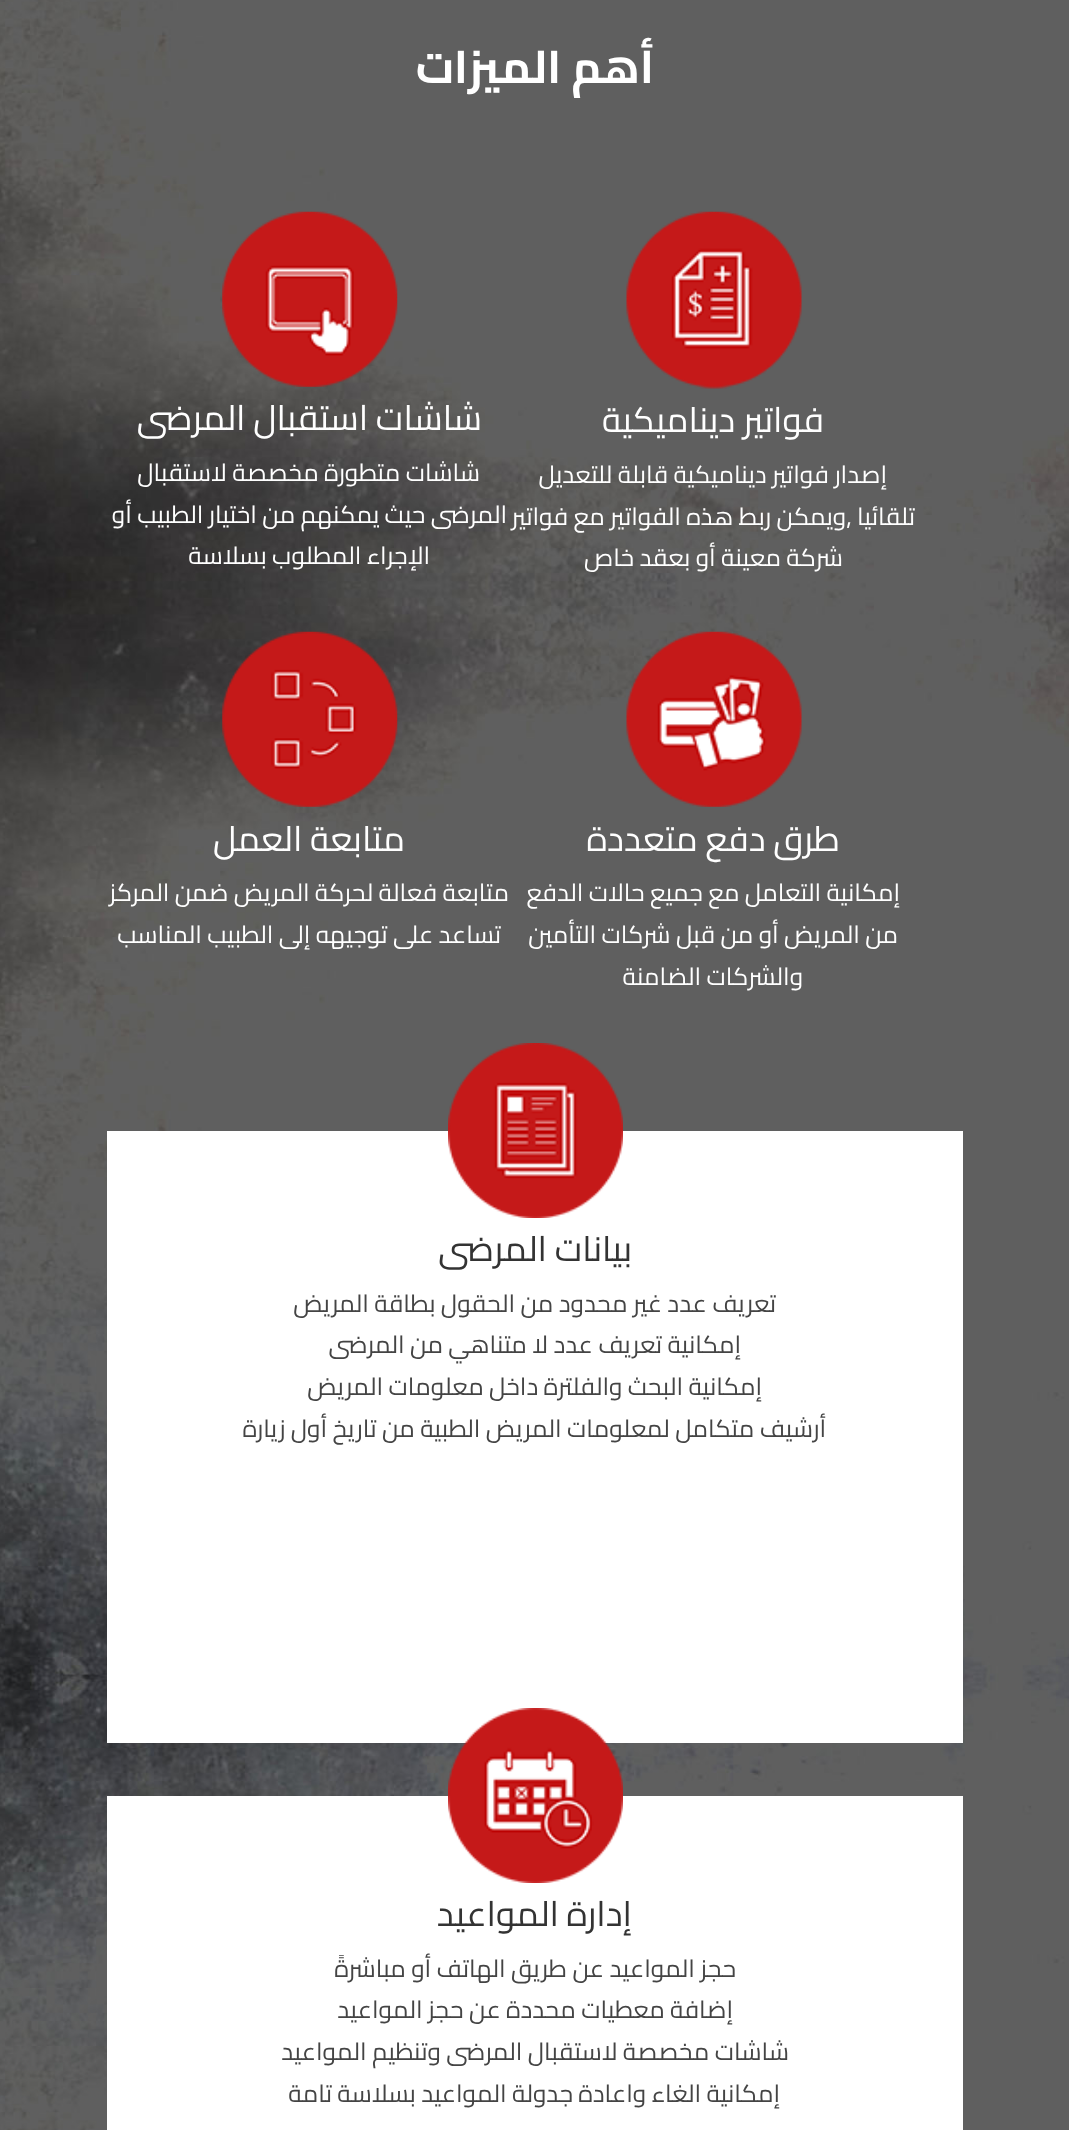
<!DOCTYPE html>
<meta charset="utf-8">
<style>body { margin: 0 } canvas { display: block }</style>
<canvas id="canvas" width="1069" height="2130"></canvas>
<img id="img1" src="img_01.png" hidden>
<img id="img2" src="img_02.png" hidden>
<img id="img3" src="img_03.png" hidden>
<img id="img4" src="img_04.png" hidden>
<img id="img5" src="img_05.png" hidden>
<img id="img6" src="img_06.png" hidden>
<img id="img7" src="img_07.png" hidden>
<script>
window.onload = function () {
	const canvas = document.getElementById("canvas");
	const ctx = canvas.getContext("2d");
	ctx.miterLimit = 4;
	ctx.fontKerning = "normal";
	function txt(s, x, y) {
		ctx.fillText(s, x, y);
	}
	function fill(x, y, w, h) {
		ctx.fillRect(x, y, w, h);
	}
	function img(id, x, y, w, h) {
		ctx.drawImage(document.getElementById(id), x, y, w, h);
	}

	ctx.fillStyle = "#FFFFFF";
	fill(0, 0, 1069, 2130);
	img("img1", 0, 0, 1069, 2130);
	img("img2", 626, 211, 176, 178);
	img("img3", 222, 211, 176, 176);
	img("img4", 626, 631, 176, 176);
	img("img5", 222, 631, 176, 176);
	fill(107, 1131, 856, 612);
	img("img6", 448, 1043, 175, 175);
	fill(107, 1796, 856, 334);
	img("img7", 448, 1708, 175, 175);
	ctx.direction = "rtl";
	ctx.font = "bold 45.5px Cairo";
	txt("أهم الميزات", 654, 83);
	ctx.font = "35px Cairo";
	txt("فواتير ديناميكية", 824, 432);
	ctx.font = "24.5px Cairo";
	txt("إصدار فواتير ديناميكية قابلة للتعديل", 887, 483);
	txt("تلقائيا ,ويمكن ربط هذه الفواتير مع فواتير", 915, 525);
	txt("شركة معينة أو بعقد خاص", 843, 566);
	ctx.font = "35px Cairo";
	txt("شاشات استقبال المرضى", 482, 430);
	ctx.font = "24.5px Cairo";
	txt("شاشات متطورة مخصصة لاستقبال", 480, 481);
	txt("المرضى حيث يمكنهم من اختيار الطبيب أو", 507, 523);
	txt("الإجراء المطلوب بسلاسة", 430, 564);
	ctx.font = "35px Cairo";
	txt("طرق دفع متعددة", 840, 851);
	ctx.font = "24.5px Cairo";
	txt("إمكانية التعامل مع جميع حالات الدفع", 900, 901);
	txt("من المريض أو من قبل شركات التأمين", 898, 943);
	txt("والشركات الضامنة", 803, 985);
	ctx.font = "35px Cairo";
	txt("متابعة العمل", 405, 851);
	ctx.font = "24.5px Cairo";
	txt("متابعة فعالة لحركة المريض ضمن المركز", 509, 901);
	txt("تساعد على توجيهه إلى الطبيب المناسب", 501, 943);
	ctx.font = "35px Cairo";
	ctx.fillStyle = "#333333";
	txt("بيانات المرضى", 632, 1261);
	ctx.font = "24.5px Cairo";
	ctx.fillStyle = "#444444";
	txt("تعريف عدد غير محدود من الحقول بطاقة المريض", 776, 1312);
	txt("إمكانية تعريف عدد لا متناهي من المرضى", 741, 1353);
	txt("إمكانية البحث والفلترة داخل معلومات المريض", 762, 1395);
	txt("أرشيف متكامل لمعلومات المريض الطبية من تاريخ أول زيارة", 826, 1437);
	ctx.font = "35px Cairo";
	ctx.fillStyle = "#333333";
	txt("إدارة المواعيد", 632, 1926);
	ctx.font = "24.5px Cairo";
	ctx.fillStyle = "#444444";
	txt("حجز المواعيد عن طريق الهاتف أو مباشرةً", 736, 1977);
	txt("إضافة معطيات محددة عن حجز المواعيد", 733, 2018);
	txt("شاشات مخصصة لاستقبال المرضى وتنظيم المواعيد", 789, 2060);
	txt("إمكانية الغاء واعادة جدولة المواعيد بسلاسة تامة", 780, 2102);
};
</script>
